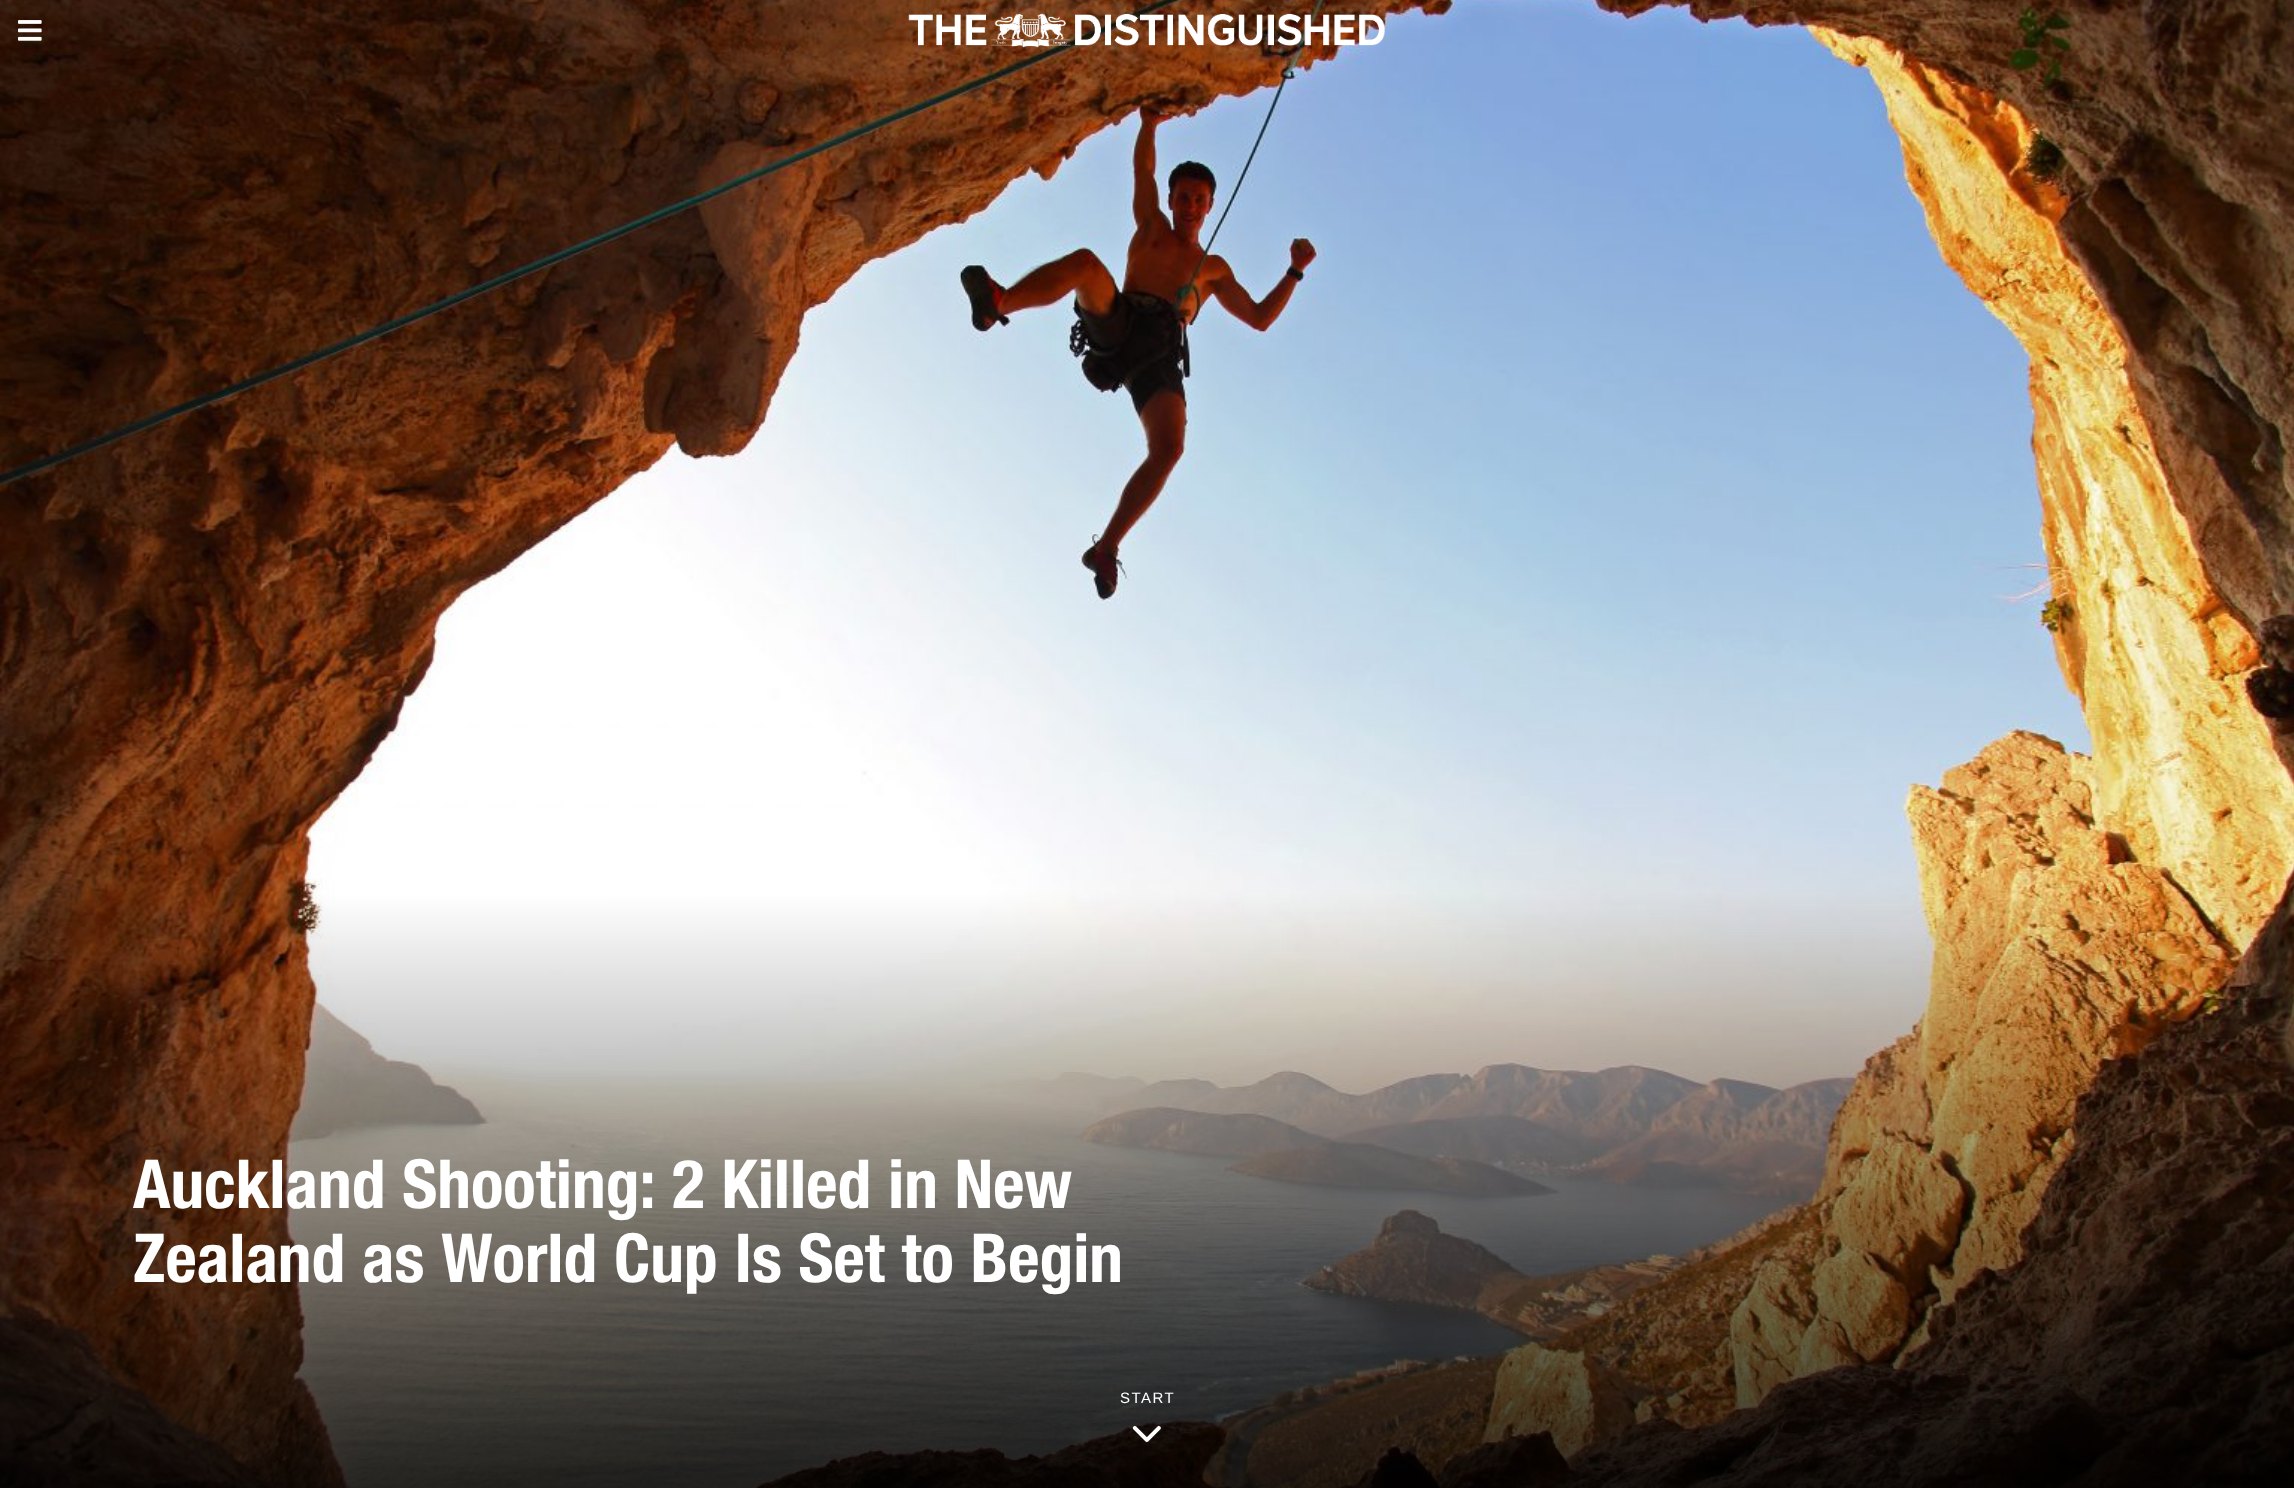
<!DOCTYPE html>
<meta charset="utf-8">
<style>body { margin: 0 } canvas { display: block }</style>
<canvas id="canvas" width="2294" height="1488"></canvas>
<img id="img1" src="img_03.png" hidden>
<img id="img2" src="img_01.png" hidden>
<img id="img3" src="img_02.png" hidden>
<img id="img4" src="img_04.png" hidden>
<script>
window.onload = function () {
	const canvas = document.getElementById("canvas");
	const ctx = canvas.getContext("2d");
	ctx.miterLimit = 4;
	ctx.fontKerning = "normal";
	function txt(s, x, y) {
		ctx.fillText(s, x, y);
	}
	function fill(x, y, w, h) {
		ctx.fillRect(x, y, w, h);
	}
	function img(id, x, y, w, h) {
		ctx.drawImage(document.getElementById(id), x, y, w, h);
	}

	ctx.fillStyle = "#FFFFFF";
	fill(0, 0, 2294, 1488);
	img("img1", 0, 0, 2294, 1488);
	img("img2", 18, 20, 24, 21);
	img("img3", 908, 13, 477, 35);
	img("img4", 1132, 1426, 29, 16);
	ctx.wordSpacing = "0.5px";
	ctx.font = "bold 67.5px Helvetica Neue";
	txt("Auckland Shooting: 2 Killed in New", 133, 1208);
	txt("Zealand as World Cup Is Set to Begin", 133, 1282);
	ctx.letterSpacing = "1.5px";
	ctx.wordSpacing = "0px";
	ctx.font = "15px Liberation Sans";
	txt("START", 1120, 1403);
};
</script>
